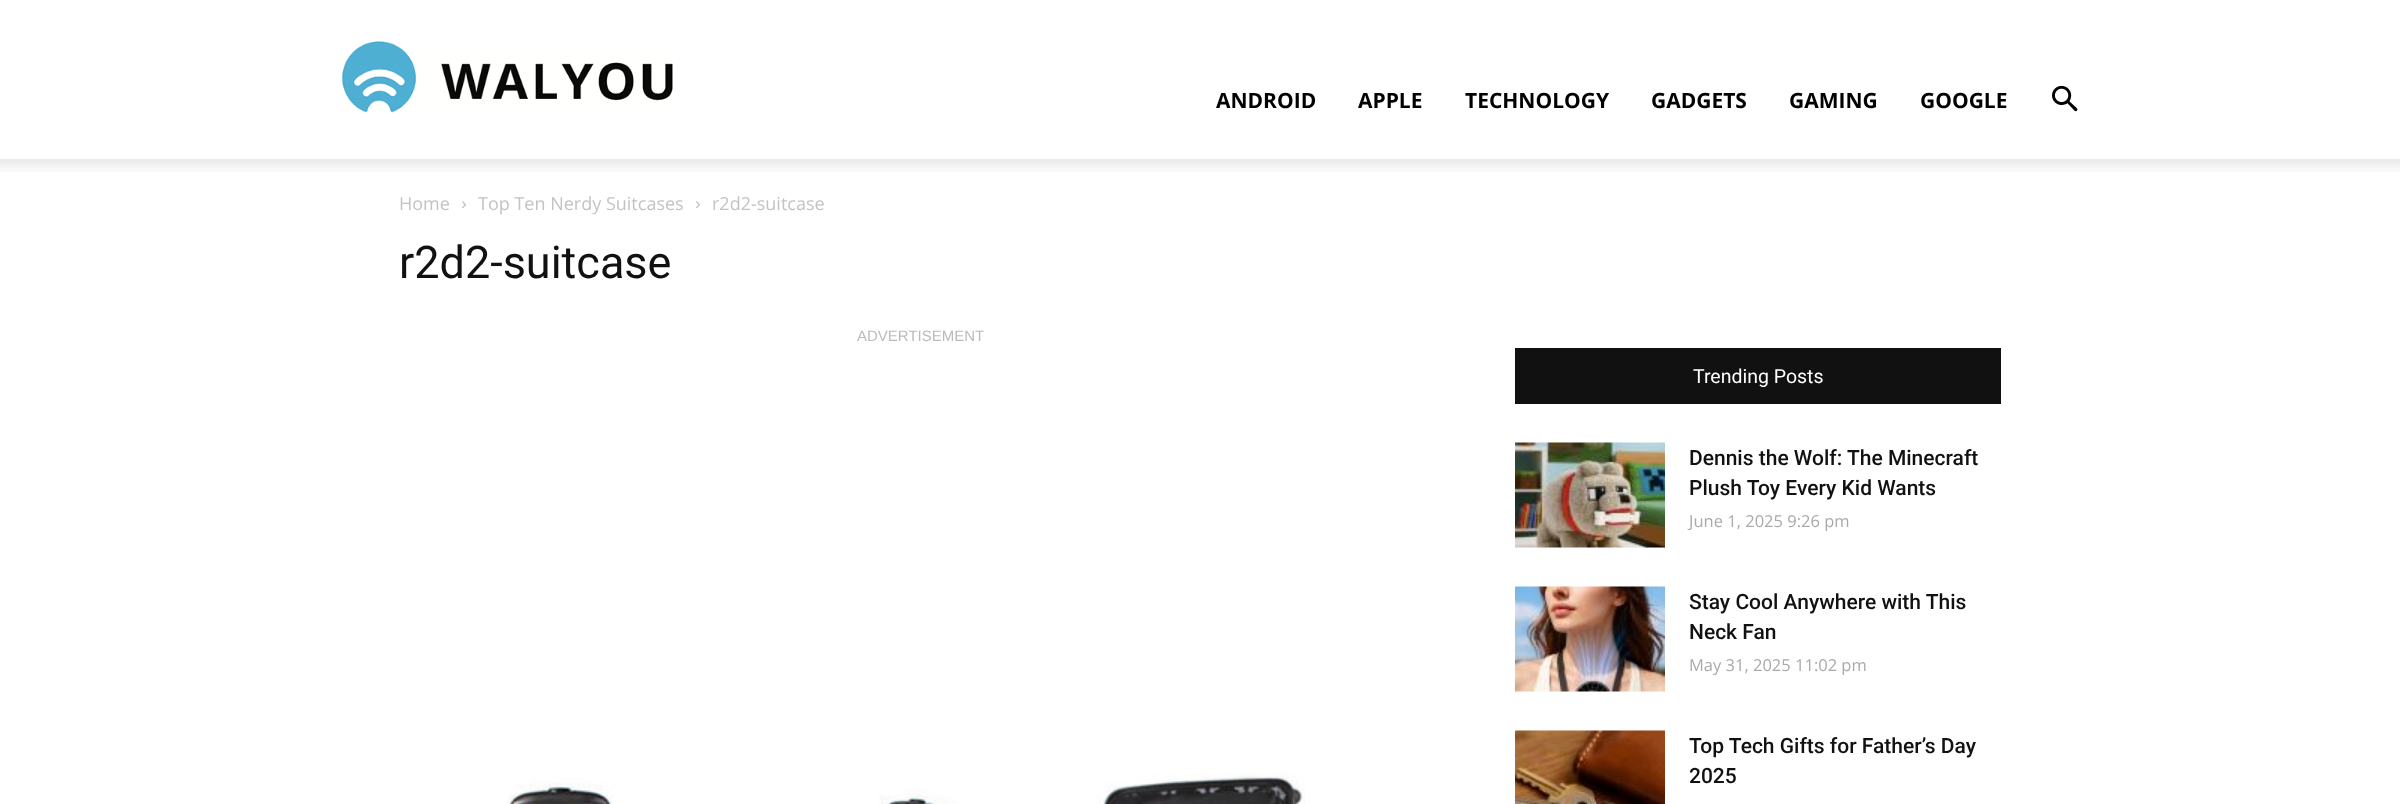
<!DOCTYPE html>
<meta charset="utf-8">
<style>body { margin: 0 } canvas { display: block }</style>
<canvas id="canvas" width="2400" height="804"></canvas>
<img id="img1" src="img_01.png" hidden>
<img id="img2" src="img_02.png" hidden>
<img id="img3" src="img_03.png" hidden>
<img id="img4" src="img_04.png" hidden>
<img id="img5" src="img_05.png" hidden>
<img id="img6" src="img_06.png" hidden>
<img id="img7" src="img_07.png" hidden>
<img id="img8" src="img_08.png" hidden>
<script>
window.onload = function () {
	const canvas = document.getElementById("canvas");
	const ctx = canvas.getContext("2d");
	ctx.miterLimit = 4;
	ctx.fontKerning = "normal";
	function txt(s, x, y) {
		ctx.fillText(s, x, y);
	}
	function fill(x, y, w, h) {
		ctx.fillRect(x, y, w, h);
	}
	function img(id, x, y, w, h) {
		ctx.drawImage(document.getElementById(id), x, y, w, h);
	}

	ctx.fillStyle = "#FFFFFF";
	fill(0, 0, 2400, 804);
	img("img1", 341, 41, 332, 72);
	img("img2", 2052, 85, 26, 27);
	img("img3", 0, 159, 2400, 13);
	img("img4", 462, 201, 4, 8);
	img("img4", 696, 201, 4, 8);
	img("img5", 507, 773, 798, 31);
	ctx.fillStyle = "#111111";
	fill(1515, 348, 486, 56);
	img("img6", 1515, 442, 150, 106);
	img("img7", 1515, 586, 150, 106);
	img("img8", 1515, 730, 150, 74);
	ctx.font = "bold 21px Open Sans";
	ctx.fillStyle = "#000000";
	txt("ANDROID", 1216, 108);
	txt("APPLE", 1358, 108);
	txt("TECHNOLOGY", 1465, 108);
	txt("GADGETS", 1651, 108);
	txt("GAMING", 1789, 108);
	txt("GOOGLE", 1920, 108);
	ctx.font = "18px Open Sans";
	ctx.fillStyle = "#C3C3C3";
	txt("Home", 399, 210);
	txt("Top Ten Nerdy Suitcases", 478, 210);
	txt("r2d2-suitcase", 712, 210);
	ctx.font = "45px Roboto";
	ctx.fillStyle = "#111111";
	txt("r2d2-suitcase", 399, 278);
	ctx.font = "15px Liberation Sans";
	ctx.fillStyle = "#BBBBBB";
	txt("ADVERTISEMENT", 857, 341);
	ctx.font = "19.5px Roboto";
	ctx.fillStyle = "#FFFFFF";
	txt("Trending Posts", 1693, 383);
	ctx.font = "500 21px Roboto";
	ctx.fillStyle = "#111111";
	txt("Dennis the Wolf: The Minecraft", 1689, 465);
	txt("Plush Toy Every Kid Wants", 1689, 495);
	ctx.font = "16.5px Open Sans";
	ctx.fillStyle = "#AAAAAA";
	txt("June 1, 2025 9:26 pm", 1689, 527);
	ctx.font = "500 21px Roboto";
	ctx.fillStyle = "#111111";
	txt("Stay Cool Anywhere with This", 1689, 609);
	txt("Neck Fan", 1689, 639);
	ctx.font = "16.5px Open Sans";
	ctx.fillStyle = "#AAAAAA";
	txt("May 31, 2025 11:02 pm", 1689, 671);
	ctx.font = "500 21px Roboto";
	ctx.fillStyle = "#111111";
	txt("Top Tech Gifts for Father’s Day", 1689, 753);
	txt("2025", 1689, 783);
};
</script>
